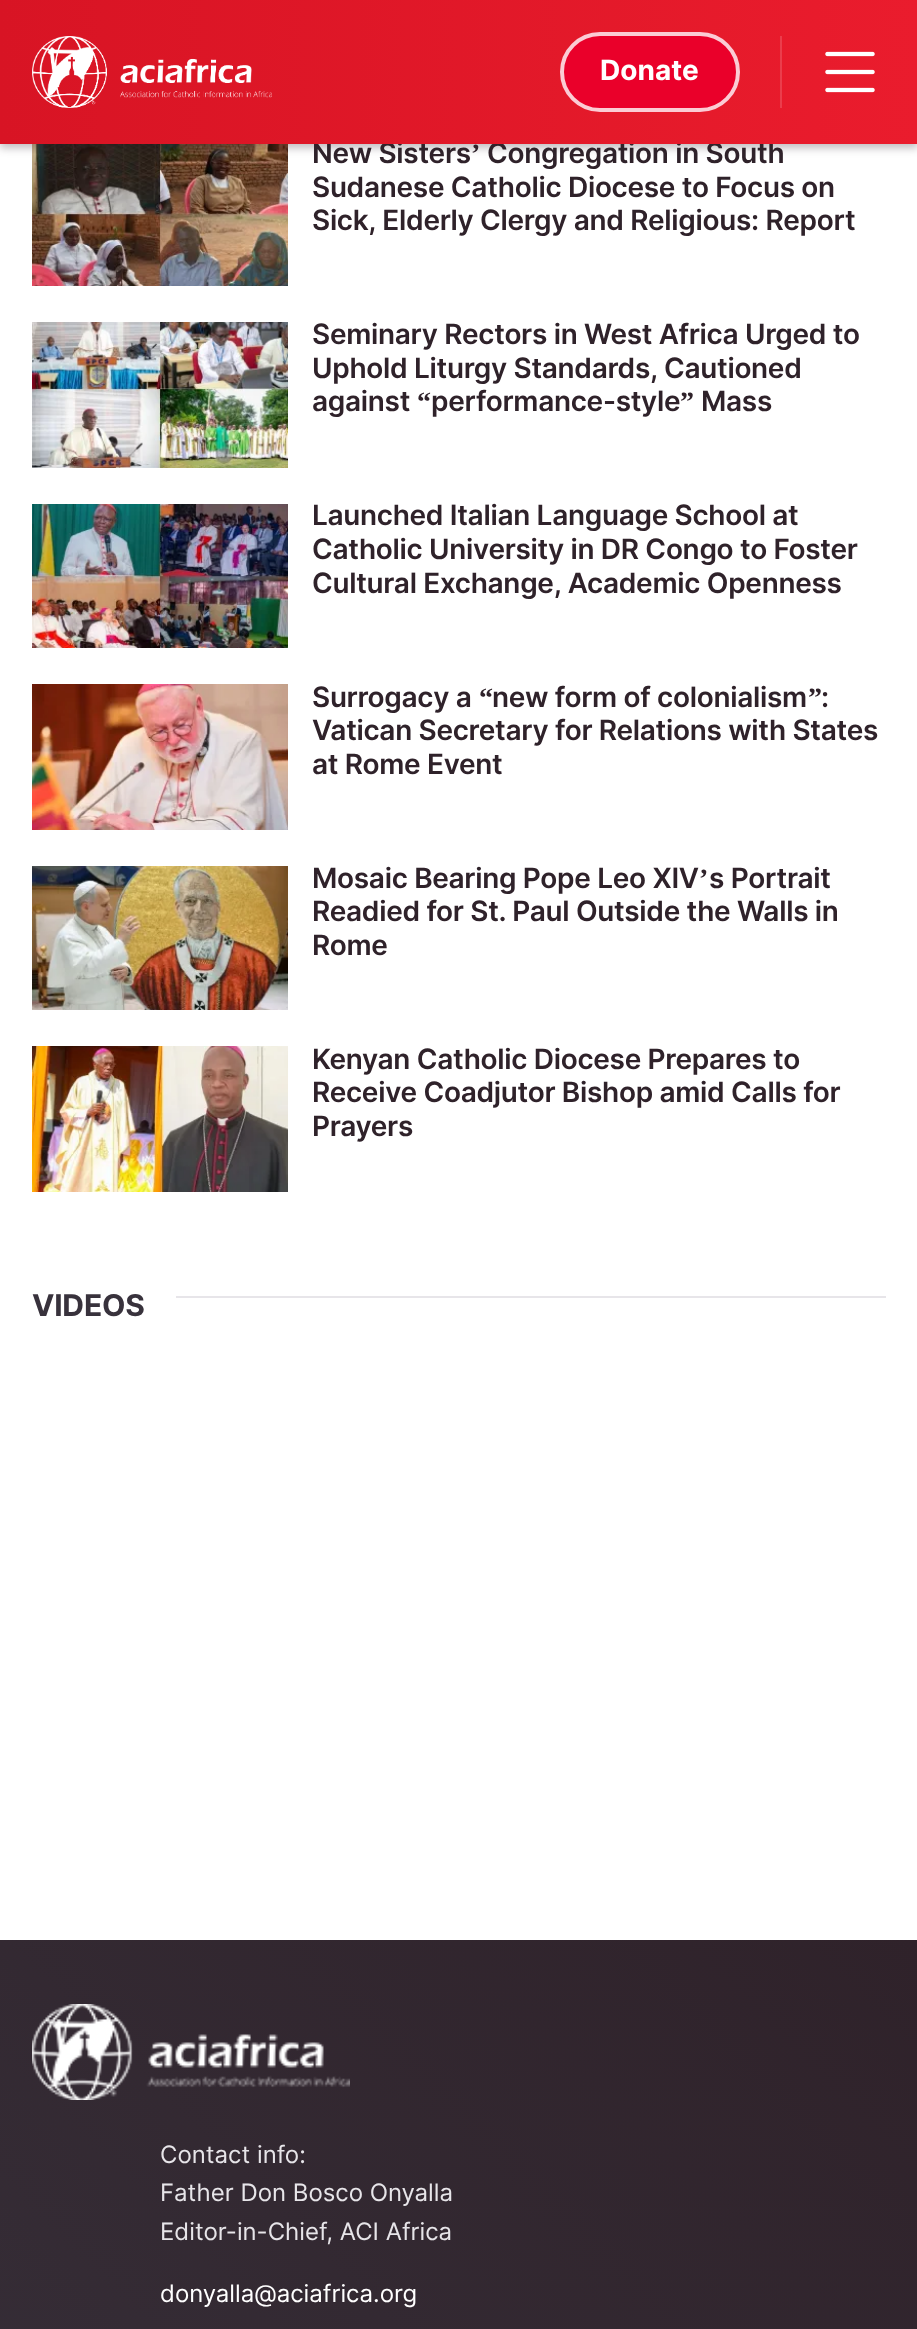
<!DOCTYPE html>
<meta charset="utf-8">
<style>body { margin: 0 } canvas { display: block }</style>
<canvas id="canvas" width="917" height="2329"></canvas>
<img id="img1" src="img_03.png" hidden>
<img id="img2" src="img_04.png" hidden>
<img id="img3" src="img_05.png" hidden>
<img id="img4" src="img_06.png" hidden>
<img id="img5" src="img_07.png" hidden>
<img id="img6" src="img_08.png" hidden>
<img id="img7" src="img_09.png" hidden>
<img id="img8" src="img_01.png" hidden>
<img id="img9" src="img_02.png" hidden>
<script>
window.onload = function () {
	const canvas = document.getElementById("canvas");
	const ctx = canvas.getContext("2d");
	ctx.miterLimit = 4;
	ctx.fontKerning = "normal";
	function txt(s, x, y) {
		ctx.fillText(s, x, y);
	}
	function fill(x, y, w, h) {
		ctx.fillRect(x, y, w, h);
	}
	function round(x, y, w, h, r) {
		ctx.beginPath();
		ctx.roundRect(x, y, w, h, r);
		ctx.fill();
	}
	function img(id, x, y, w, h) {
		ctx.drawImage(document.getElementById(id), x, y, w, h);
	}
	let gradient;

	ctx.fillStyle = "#FFFFFF";
	fill(0, 0, 917, 2329);
	img("img1", 32, 144, 256, 142);
	ctx.fillStyle = "rgba(47, 34, 42, 0.3)";
	ctx.filter = "blur(4px)";
	ctx.beginPath();
	ctx.rect(0, 4, 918, 144);
	ctx.fill();
	ctx.filter = "none";
	img("img2", 32, 322, 256, 146);
	img("img3", 32, 504, 256, 144);
	img("img4", 32, 684, 256, 146);
	img("img5", 32, 866, 256, 144);
	img("img6", 32, 1046, 256, 146);
	ctx.fillStyle = "#E7E5E9";
	fill(176, 1296, 710, 2);
	gradient = ctx.createLinearGradient(-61, 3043, 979, 2002);
	gradient.addColorStop(0, "#38323C");
	gradient.addColorStop(1, "#2F222A");
	ctx.fillStyle = gradient;
	fill(0, 1940, 917, 389);
	img("img7", 32, 2004, 318, 96);
	ctx.letterSpacing = "-0.3px";
	ctx.font = "600 28px Inter";
	ctx.fillStyle = "#2F222A";
	txt("New Sisters", 312, 163);
	ctx.font = "bold 28px Liberation Serif";
	txt("’", 471, 163);
	ctx.font = "600 28px Inter";
	txt("Congregation in South", 487, 163);
	gradient = ctx.createLinearGradient(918, 72, 0, 72);
	gradient.addColorStop(0, "#EA1C2D");
	gradient.addColorStop(1, "#D81424");
	ctx.fillStyle = gradient;
	fill(0, 0, 917, 144);
	img("img8", 32, 36, 240, 72);
	img("img9", 825, 51, 50, 42);
	ctx.fillStyle = "#EB3D4C";
	fill(780, 36, 2, 72);
	ctx.fillStyle = "#EA002A";
	round(560, 32, 180, 80, 40);
	ctx.beginPath();
	ctx.roundRect(562, 34, 176, 76, 38);
	ctx.strokeStyle = "rgba(255, 255, 255, 0.8)";
	ctx.lineWidth = 4;
	ctx.stroke();
	ctx.letterSpacing = "0px";
	ctx.font = "bold 28px Inter";
	ctx.fillStyle = "#FFFFFF";
	txt("Donate", 600, 80);
	ctx.letterSpacing = "-0.3px";
	ctx.font = "600 28px Inter";
	ctx.fillStyle = "#2F222A";
	txt("Sudanese Catholic Diocese to Focus on", 312, 197);
	txt("Sick, Elderly Clergy and Religious: Report", 312, 230);
	txt("Seminary Rectors in West Africa Urged to", 312, 344);
	txt("Uphold Liturgy Standards, Cautioned", 312, 378);
	txt("against", 312, 411);
	ctx.font = "bold 28px Liberation Serif";
	txt("“", 417, 411);
	ctx.font = "600 28px Inter";
	txt("performance-style", 431, 411);
	ctx.font = "bold 28px Liberation Serif";
	txt("”", 680, 411);
	ctx.font = "600 28px Inter";
	txt("Mass", 701, 411);
	txt("Launched Italian Language School at", 312, 525);
	txt("Catholic University in DR Congo to Foster", 312, 559);
	txt("Cultural Exchange, Academic Openness", 312, 593);
	txt("Surrogacy a", 312, 707);
	ctx.font = "bold 28px Liberation Serif";
	txt("“", 479, 707);
	ctx.font = "600 28px Inter";
	txt("new form of colonialism", 492, 707);
	ctx.font = "bold 28px Liberation Serif";
	txt("”", 808, 707);
	ctx.font = "600 28px Inter";
	txt(":", 821, 707);
	txt("Vatican Secretary for Relations with States", 312, 740);
	txt("at Rome Event", 312, 774);
	txt("Mosaic Bearing Pope Leo XIV", 312, 888);
	ctx.font = "bold 28px Liberation Serif";
	txt("’", 699, 888);
	ctx.font = "600 28px Inter";
	txt("s Portrait", 709, 888);
	txt("Readied for St. Paul Outside the Walls in", 312, 921);
	txt("Rome", 312, 955);
	txt("Kenyan Catholic Diocese Prepares to", 312, 1069);
	txt("Receive Coadjutor Bishop amid Calls for", 312, 1102);
	txt("Prayers", 312, 1136);
	ctx.letterSpacing = "-0.25px";
	ctx.font = "bold 30px Inter";
	ctx.fillStyle = "#38323C";
	txt("VIDEOS", 32, 1316);
	ctx.letterSpacing = "0px";
	ctx.font = "24px Inter";
	ctx.fillStyle = "#E7E5E9";
	txt("Contact info:", 160, 2163);
	txt("Father Don Bosco Onyalla", 160, 2201);
	txt("Editor-in-Chief, ACI Africa", 160, 2240);
	ctx.fillStyle = "#FFFFFF";
	txt("donyalla@aciafrica.org", 160, 2302);
};
</script>
